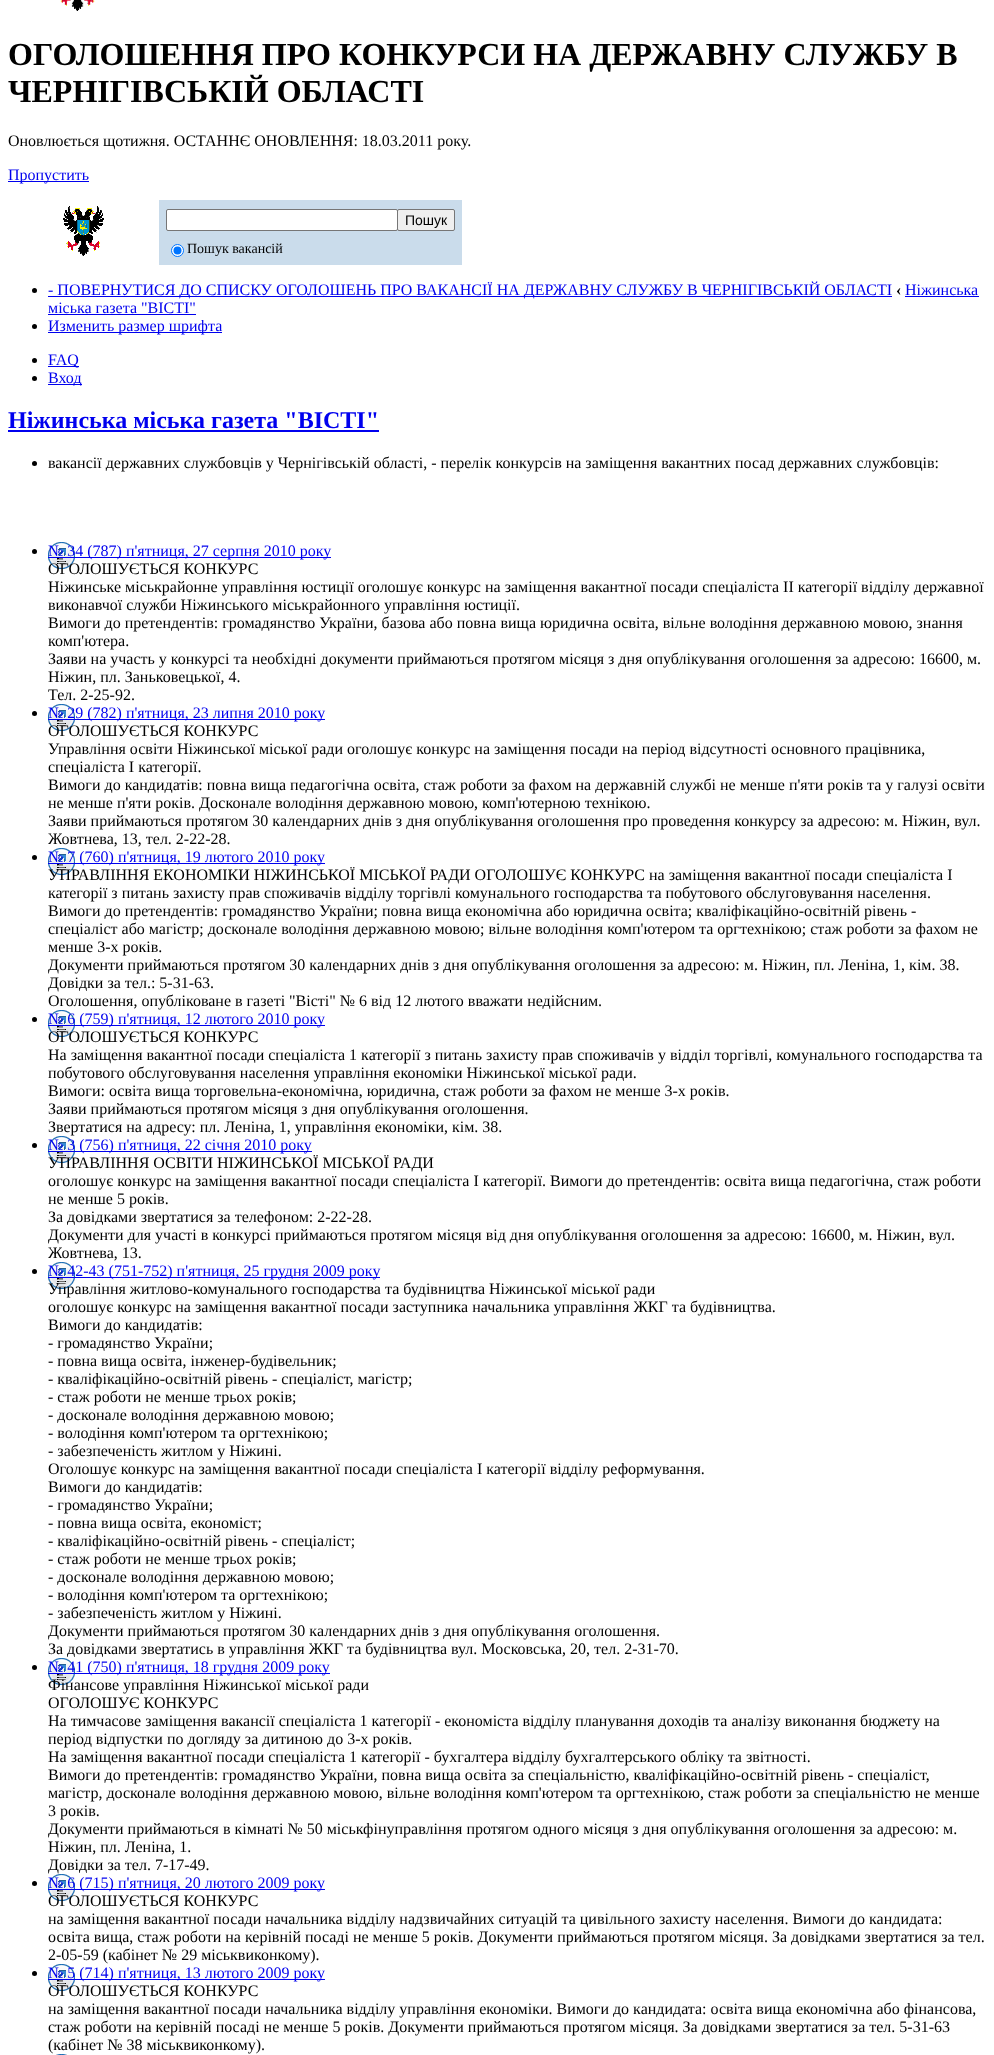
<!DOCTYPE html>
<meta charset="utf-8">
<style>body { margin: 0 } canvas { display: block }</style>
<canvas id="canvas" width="994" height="2055"></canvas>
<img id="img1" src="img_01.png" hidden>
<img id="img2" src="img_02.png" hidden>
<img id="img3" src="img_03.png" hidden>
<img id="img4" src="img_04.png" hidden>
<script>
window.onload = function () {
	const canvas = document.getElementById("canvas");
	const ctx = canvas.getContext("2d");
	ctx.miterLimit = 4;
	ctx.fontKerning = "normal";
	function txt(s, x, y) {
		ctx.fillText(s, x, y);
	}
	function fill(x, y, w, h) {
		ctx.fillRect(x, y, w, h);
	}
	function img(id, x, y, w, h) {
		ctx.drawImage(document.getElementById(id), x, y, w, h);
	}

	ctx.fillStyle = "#FFFFFF";
	fill(0, 0, 994, 2055);
	img("img1", 60, 0, 35, 11);
	ctx.fillStyle = "#0000EE";
	fill(8, 181, 81, 1);
	img("img2", 63, 206, 41, 50);
	ctx.fillStyle = "#CADCEB";
	fill(159, 200, 303, 65);
	ctx.fillStyle = "#FFFFFF";
	ctx.beginPath();
	ctx.roundRect(166.5, 209.5, 231, 21, 1.5);
	ctx.fill();
	ctx.strokeStyle = "#767676";
	ctx.stroke();
	ctx.fillStyle = "#EFEFEF";
	ctx.beginPath();
	ctx.roundRect(397.5, 209.5, 57, 21, 1.5);
	ctx.fill();
	ctx.stroke();
	ctx.fillStyle = "#FFFFFF";
	ctx.beginPath();
	ctx.arc(177.5, 250.5, 6, 0, Math.PI * 2);
	ctx.fill();
	ctx.strokeStyle = "#0075FF";
	ctx.stroke();
	ctx.fillStyle = "#0075FF";
	ctx.beginPath();
	ctx.arc(177.5, 250.5, 4, 0, Math.PI * 2);
	ctx.fill();
	ctx.fillStyle = "#000000";
	ctx.beginPath();
	ctx.arc(34.5, 290.5, 2.5, 0, Math.PI * 2);
	ctx.fill();
	ctx.fillStyle = "#0000EE";
	fill(48, 296, 844, 1);
	fill(905, 296, 74, 1);
	fill(48, 314, 148, 1);
	ctx.fillStyle = "#000000";
	ctx.beginPath();
	ctx.arc(34.5, 326.5, 2.5, 0, Math.PI * 2);
	ctx.fill();
	ctx.fillStyle = "#0000EE";
	fill(48, 332, 174, 1);
	ctx.fillStyle = "#000000";
	ctx.beginPath();
	ctx.arc(34.5, 360.5, 2.5, 0, Math.PI * 2);
	ctx.fill();
	ctx.fillStyle = "#0000EE";
	fill(48, 366, 31, 1);
	ctx.fillStyle = "#000000";
	ctx.beginPath();
	ctx.arc(34.5, 378.5, 2.5, 0, Math.PI * 2);
	ctx.fill();
	ctx.fillStyle = "#0000EE";
	fill(48, 384, 34, 1);
	fill(8, 430, 371, 2);
	ctx.fillStyle = "#000000";
	ctx.beginPath();
	ctx.arc(34.5, 463.5, 2.5, 0, Math.PI * 2);
	ctx.fill();
	ctx.beginPath();
	ctx.arc(34.5, 551.5, 2.5, 0, Math.PI * 2);
	ctx.fill();
	img("img3", 48, 542, 27, 27);
	ctx.fillStyle = "#0000EE";
	fill(48, 557, 283, 1);
	ctx.fillStyle = "#000000";
	ctx.beginPath();
	ctx.arc(34.5, 713.5, 2.5, 0, Math.PI * 2);
	ctx.fill();
	img("img3", 48, 704, 27, 27);
	ctx.fillStyle = "#0000EE";
	fill(48, 719, 277, 1);
	ctx.fillStyle = "#000000";
	ctx.beginPath();
	ctx.arc(34.5, 857.5, 2.5, 0, Math.PI * 2);
	ctx.fill();
	img("img3", 48, 848, 27, 27);
	ctx.fillStyle = "#0000EE";
	fill(48, 863, 277, 1);
	ctx.fillStyle = "#000000";
	ctx.beginPath();
	ctx.arc(34.5, 1019.5, 2.5, 0, Math.PI * 2);
	ctx.fill();
	img("img3", 48, 1010, 27, 27);
	ctx.fillStyle = "#0000EE";
	fill(48, 1025, 277, 1);
	ctx.fillStyle = "#000000";
	ctx.beginPath();
	ctx.arc(34.5, 1145.5, 2.5, 0, Math.PI * 2);
	ctx.fill();
	img("img3", 48, 1136, 27, 27);
	ctx.fillStyle = "#0000EE";
	fill(48, 1151, 264, 1);
	ctx.fillStyle = "#000000";
	ctx.beginPath();
	ctx.arc(34.5, 1271.5, 2.5, 0, Math.PI * 2);
	ctx.fill();
	img("img3", 48, 1262, 27, 27);
	ctx.fillStyle = "#0000EE";
	fill(48, 1277, 332, 1);
	ctx.fillStyle = "#000000";
	ctx.beginPath();
	ctx.arc(34.5, 1667.5, 2.5, 0, Math.PI * 2);
	ctx.fill();
	img("img3", 48, 1658, 27, 27);
	ctx.fillStyle = "#0000EE";
	fill(48, 1673, 282, 1);
	ctx.fillStyle = "#000000";
	ctx.beginPath();
	ctx.arc(34.5, 1883.5, 2.5, 0, Math.PI * 2);
	ctx.fill();
	img("img3", 48, 1874, 27, 27);
	ctx.fillStyle = "#0000EE";
	fill(48, 1889, 277, 1);
	ctx.fillStyle = "#000000";
	ctx.beginPath();
	ctx.arc(34.5, 1973.5, 2.5, 0, Math.PI * 2);
	ctx.fill();
	img("img3", 48, 1964, 27, 27);
	ctx.fillStyle = "#0000EE";
	fill(48, 1979, 277, 1);
	img("img4", 56, 2054, 11, 1);
	ctx.font = "bold 32px Liberation Serif";
	ctx.fillStyle = "#000000";
	txt("ОГОЛОШЕННЯ ПРО КОНКУРСИ НА ДЕРЖАВНУ СЛУЖБУ В", 8, 65);
	txt("ЧЕРНІГІВСЬКІЙ ОБЛАСТІ", 8, 102);
	ctx.font = "16px Liberation Serif";
	txt("Оновлюється щотижня. ОСТАННЄ ОНОВЛЕННЯ: 18.03.2011 року.", 8, 146);
	ctx.fillStyle = "#0000EE";
	txt("Пропустить", 8, 180);
	ctx.font = "14px Liberation Sans";
	ctx.fillStyle = "#000000";
	txt("Пошук", 405, 225);
	ctx.font = "14px Liberation Serif";
	txt("Пошук вакансій", 187, 253);
	ctx.font = "16px Liberation Serif";
	ctx.fillStyle = "#0000EE";
	txt("- ПОВЕРНУТИСЯ ДО СПИСКУ ОГОЛОШЕНЬ ПРО ВАКАНСІЇ НА ДЕРЖАВНУ СЛУЖБУ В ЧЕРНІГІВСЬКІЙ ОБЛАСТІ", 48, 295);
	ctx.font = "bold 16px Liberation Serif";
	ctx.fillStyle = "#000000";
	txt("‹", 896, 295);
	ctx.font = "16px Liberation Serif";
	ctx.fillStyle = "#0000EE";
	txt("Ніжинська", 905, 295);
	txt("міська газета \"ВІСТІ\"", 48, 313);
	txt("Изменить размер шрифта", 48, 331);
	txt("FAQ", 48, 365);
	txt("Вход", 48, 383);
	ctx.font = "bold 24px Liberation Serif";
	txt("Ніжинська міська газета \"ВІСТІ\"", 8, 428);
	ctx.font = "16px Liberation Serif";
	ctx.fillStyle = "#000000";
	txt("вакансії державних службовців у Чернігівській області, - перелік конкурсів на заміщення вакантних посад державних службовців:", 48, 468);
	ctx.fillStyle = "#0000EE";
	txt("№ 34 (787) п'ятниця, 27 серпня 2010 року", 48, 556);
	ctx.fillStyle = "#000000";
	txt("ОГОЛОШУЄТЬСЯ КОНКУРС", 48, 574);
	txt("Ніжинське міськрайонне управління юстиції оголошує конкурс на заміщення вакантної посади спеціаліста ІІ категорії відділу державної", 48, 592);
	txt("виконавчої служби Ніжинського міськрайонного управління юстиції.", 48, 610);
	txt("Вимоги до претендентів: громадянство України, базова або повна вища юридична освіта, вільне володіння державною мовою, знання", 48, 628);
	txt("комп'ютера.", 48, 646);
	txt("Заяви на участь у конкурсі та необхідні документи приймаються протягом місяця з дня опублікування оголошення за адресою: 16600, м.", 48, 664);
	txt("Ніжин, пл. Заньковецької, 4.", 48, 682);
	txt("Тел. 2-25-92.", 48, 700);
	ctx.fillStyle = "#0000EE";
	txt("№ 29 (782) п'ятниця, 23 липня 2010 року", 48, 718);
	ctx.fillStyle = "#000000";
	txt("ОГОЛОШУЄТЬСЯ КОНКУРС", 48, 736);
	txt("Управління освіти Ніжинської міської ради оголошує конкурс на заміщення посади на період відсутності основного працівника,", 48, 754);
	txt("спеціаліста І категорії.", 48, 772);
	txt("Вимоги до кандидатів: повна вища педагогічна освіта, стаж роботи за фахом на державній службі не менше п'яти років та у галузі освіти", 48, 790);
	txt("не менше п'яти років. Досконале володіння державною мовою, комп'ютерною технікою.", 48, 808);
	txt("Заяви приймаються протягом 30 календарних днів з дня опублікування оголошення про проведення конкурсу за адресою: м. Ніжин, вул.", 48, 826);
	txt("Жовтнева, 13, тел. 2-22-28.", 48, 844);
	ctx.fillStyle = "#0000EE";
	txt("№ 7 (760) п'ятниця, 19 лютого 2010 року", 48, 862);
	ctx.fillStyle = "#000000";
	txt("УПРАВЛІННЯ ЕКОНОМІКИ НІЖИНСЬКОЇ МІСЬКОЇ РАДИ ОГОЛОШУЄ КОНКУРС на заміщення вакантної посади спеціаліста І", 48, 880);
	txt("категорії з питань захисту прав споживачів відділу торгівлі комунального господарства та побутового обслуговування населення.", 48, 898);
	txt("Вимоги до претендентів: громадянство України; повна вища економічна або юридична освіта; кваліфікаційно-освітній рівень -", 48, 916);
	txt("спеціаліст або магістр; досконале володіння державною мовою; вільне володіння комп'ютером та оргтехнікою; стаж роботи за фахом не", 48, 934);
	txt("менше 3-х років.", 48, 952);
	txt("Документи приймаються протягом 30 календарних днів з дня опублікування оголошення за адресою: м. Ніжин, пл. Леніна, 1, кім. 38.", 48, 970);
	txt("Довідки за тел.: 5-31-63.", 48, 988);
	txt("Оголошення, опубліковане в газеті \"Вісті\" № 6 від 12 лютого вважати недійсним.", 48, 1006);
	ctx.fillStyle = "#0000EE";
	txt("№ 6 (759) п'ятниця, 12 лютого 2010 року", 48, 1024);
	ctx.fillStyle = "#000000";
	txt("ОГОЛОШУЄТЬСЯ КОНКУРС", 48, 1042);
	txt("На заміщення вакантної посади спеціаліста 1 категорії з питань захисту прав споживачів у відділ торгівлі, комунального господарства та", 48, 1060);
	txt("побутового обслуговування населення управління економіки Ніжинської міської ради.", 48, 1078);
	txt("Вимоги: освіта вища торговельна-економічна, юридична, стаж роботи за фахом не менше 3-х років.", 48, 1096);
	txt("Заяви приймаються протягом місяця з дня опублікування оголошення.", 48, 1114);
	txt("Звертатися на адресу: пл. Леніна, 1, управління економіки, кім. 38.", 48, 1132);
	ctx.fillStyle = "#0000EE";
	txt("№ 3 (756) п'ятниця, 22 січня 2010 року", 48, 1150);
	ctx.fillStyle = "#000000";
	txt("УПРАВЛІННЯ ОСВІТИ НІЖИНСЬКОЇ МІСЬКОЇ РАДИ", 48, 1168);
	txt("оголошує конкурс на заміщення вакантної посади спеціаліста І категорії. Вимоги до претендентів: освіта вища педагогічна, стаж роботи", 48, 1186);
	txt("не менше 5 років.", 48, 1204);
	txt("За довідками звертатися за телефоном: 2-22-28.", 48, 1222);
	txt("Документи для участі в конкурсі приймаються протягом місяця від дня опублікування оголошення за адресою: 16600, м. Ніжин, вул.", 48, 1240);
	txt("Жовтнева, 13.", 48, 1258);
	ctx.fillStyle = "#0000EE";
	txt("№ 42-43 (751-752) п'ятниця, 25 грудня 2009 року", 48, 1276);
	ctx.fillStyle = "#000000";
	txt("Управління житлово-комунального господарства та будівництва Ніжинської міської ради", 48, 1294);
	txt("оголошує конкурс на заміщення вакантної посади заступника начальника управління ЖКГ та будівництва.", 48, 1312);
	txt("Вимоги до кандидатів:", 48, 1330);
	txt("- громадянство України;", 48, 1348);
	txt("- повна вища освіта, інженер-будівельник;", 48, 1366);
	txt("- кваліфікаційно-освітній рівень - спеціаліст, магістр;", 48, 1384);
	txt("- стаж роботи не менше трьох років;", 48, 1402);
	txt("- досконале володіння державною мовою;", 48, 1420);
	txt("- володіння комп'ютером та оргтехнікою;", 48, 1438);
	txt("- забезпеченість житлом у Ніжині.", 48, 1456);
	txt("Оголошує конкурс на заміщення вакантної посади спеціаліста І категорії відділу реформування.", 48, 1474);
	txt("Вимоги до кандидатів:", 48, 1492);
	txt("- громадянство України;", 48, 1510);
	txt("- повна вища освіта, економіст;", 48, 1528);
	txt("- кваліфікаційно-освітній рівень - спеціаліст;", 48, 1546);
	txt("- стаж роботи не менше трьох років;", 48, 1564);
	txt("- досконале володіння державною мовою;", 48, 1582);
	txt("- володіння комп'ютером та оргтехнікою;", 48, 1600);
	txt("- забезпеченість житлом у Ніжині.", 48, 1618);
	txt("Документи приймаються протягом 30 календарних днів з дня опублікування оголошення.", 48, 1636);
	txt("За довідками звертатись в управління ЖКГ та будівництва вул. Московська, 20, тел. 2-31-70.", 48, 1654);
	ctx.fillStyle = "#0000EE";
	txt("№ 41 (750) п'ятниця, 18 грудня 2009 року", 48, 1672);
	ctx.fillStyle = "#000000";
	txt("Фінансове управління Ніжинської міської ради", 48, 1690);
	txt("ОГОЛОШУЄ КОНКУРС", 48, 1708);
	txt("На тимчасове заміщення вакансії спеціаліста 1 категорії - економіста відділу планування доходів та аналізу виконання бюджету на", 48, 1726);
	txt("період відпустки по догляду за дитиною до 3-х років.", 48, 1744);
	txt("На заміщення вакантної посади спеціаліста 1 категорії - бухгалтера відділу бухгалтерського обліку та звітності.", 48, 1762);
	txt("Вимоги до претендентів: громадянство України, повна вища освіта за спеціальністю, кваліфікаційно-освітній рівень - спеціаліст,", 48, 1780);
	txt("магістр, досконале володіння державною мовою, вільне володіння комп'ютером та оргтехнікою, стаж роботи за спеціальністю не менше", 48, 1798);
	txt("3 років.", 48, 1816);
	txt("Документи приймаються в кімнаті № 50 міськфінуправління протягом одного місяця з дня опублікування оголошення за адресою: м.", 48, 1834);
	txt("Ніжин, пл. Леніна, 1.", 48, 1852);
	txt("Довідки за тел. 7-17-49.", 48, 1870);
	ctx.fillStyle = "#0000EE";
	txt("№ 6 (715) п'ятниця, 20 лютого 2009 року", 48, 1888);
	ctx.fillStyle = "#000000";
	txt("ОГОЛОШУЄТЬСЯ КОНКУРС", 48, 1906);
	txt("на заміщення вакантної посади начальника відділу надзвичайних ситуацій та цивільного захисту населення. Вимоги до кандидата:", 48, 1924);
	txt("освіта вища, стаж роботи на керівній посаді не менше 5 років. Документи приймаються протягом місяця. За довідками звертатися за тел.", 48, 1942);
	txt("2-05-59 (кабінет № 29 міськвиконкому).", 48, 1960);
	ctx.fillStyle = "#0000EE";
	txt("№ 5 (714) п'ятниця, 13 лютого 2009 року", 48, 1978);
	ctx.fillStyle = "#000000";
	txt("ОГОЛОШУЄТЬСЯ КОНКУРС", 48, 1996);
	txt("на заміщення вакантної посади начальника відділу управління економіки. Вимоги до кандидата: освіта вища економічна або фінансова,", 48, 2014);
	txt("стаж роботи на керівній посаді не менше 5 років. Документи приймаються протягом місяця. За довідками звертатися за тел. 5-31-63", 48, 2032);
	txt("(кабінет № 38 міськвиконкому).", 48, 2050);
};
</script>
